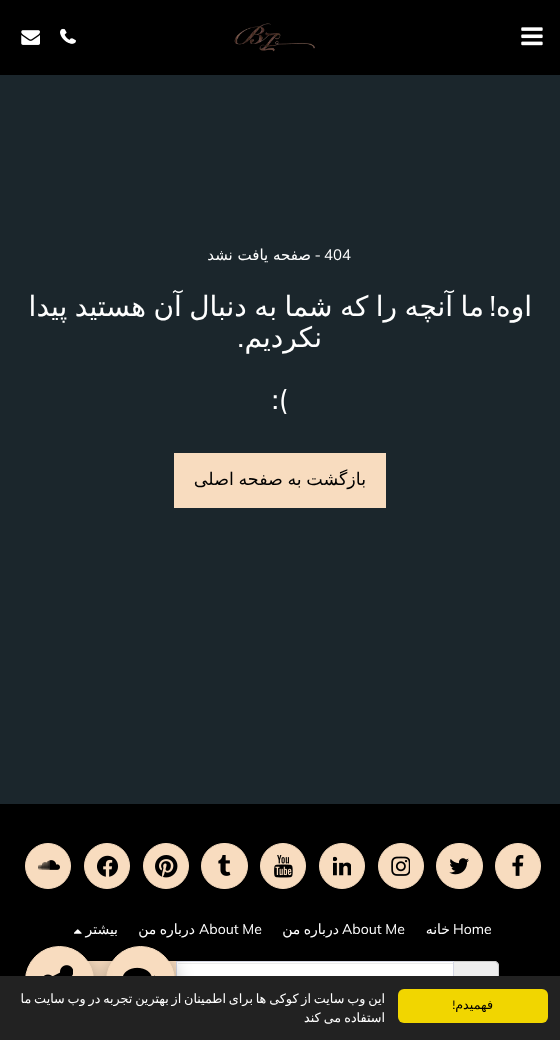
<!DOCTYPE html>
<meta charset="utf-8">
<style>body { margin: 0 } canvas { display: block }</style>
<canvas id="canvas" width="560" height="1040"></canvas>
<img id="img1" src="img_01.png" hidden>
<img id="img2" src="img_02.png" hidden>
<img id="img3" src="img_03.png" hidden>
<img id="img4" src="img_04.png" hidden>
<img id="img5" src="img_05.png" hidden>
<img id="img6" src="img_06.png" hidden>
<img id="img7" src="img_07.png" hidden>
<img id="img8" src="img_08.png" hidden>
<img id="img9" src="img_09.png" hidden>
<img id="img10" src="img_10.png" hidden>
<img id="img11" src="img_11.png" hidden>
<img id="img12" src="img_12.png" hidden>
<img id="img13" src="img_13.png" hidden>
<img id="img14" src="img_14.png" hidden>
<img id="img15" src="img_15.png" hidden>
<img id="img16" src="img_16.png" hidden>
<img id="img17" src="img_17.png" hidden>
<script>
window.onload = function () {
	const canvas = document.getElementById("canvas");
	const ctx = canvas.getContext("2d");
	ctx.miterLimit = 4;
	ctx.fontKerning = "normal";
	function txt(s, x, y) {
		ctx.fillText(s, x, y);
	}
	function fill(x, y, w, h) {
		ctx.fillRect(x, y, w, h);
	}
	function round(x, y, w, h, r) {
		ctx.beginPath();
		ctx.roundRect(x, y, w, h, r);
		ctx.fill();
	}
	function img(id, x, y, w, h) {
		ctx.drawImage(document.getElementById(id), x, y, w, h);
	}

	ctx.fillStyle = "#1B262C";
	fill(0, 0, 560, 1040);
	ctx.fillStyle = "#000000";
	fill(0, 0, 560, 75);
	img("img1", 521, 27, 22, 19);
	img("img2", 234, 23, 81, 29);
	img("img3", 60, 28, 14, 16);
	img("img4", 63, 29, 13, 15);
	img("img5", 21, 30, 19, 15);
	ctx.fillStyle = "#F8DCBF";
	fill(174, 453, 212, 55);
	ctx.fillStyle = "#000000";
	fill(0, 804, 560, 172);
	ctx.fillStyle = "#F8DCBF";
	ctx.beginPath();
	ctx.arc(518, 866, 22.5, 0, Math.PI * 2);
	ctx.fill();
	ctx.strokeStyle = "#F8DCBF";
	ctx.stroke();
	img("img6", 512, 855, 12, 21);
	ctx.beginPath();
	ctx.roundRect(436.5, 843.5, 46, 45, 22.5);
	ctx.fill();
	ctx.stroke();
	img("img7", 449, 858, 20, 17);
	ctx.beginPath();
	ctx.arc(401, 866, 22.5, 0, Math.PI * 2);
	ctx.fill();
	ctx.stroke();
	img("img8", 391, 856, 19, 20);
	ctx.beginPath();
	ctx.arc(342, 866, 22.5, 0, Math.PI * 2);
	ctx.fill();
	ctx.stroke();
	img("img9", 333, 856, 18, 20);
	ctx.beginPath();
	ctx.arc(283, 866, 22.5, 0, Math.PI * 2);
	ctx.fill();
	ctx.stroke();
	img("img10", 274, 855, 19, 23);
	ctx.beginPath();
	ctx.roundRect(201.5, 843.5, 46, 45, 22.5);
	ctx.fill();
	ctx.stroke();
	img("img11", 218, 855, 13, 21);
	ctx.beginPath();
	ctx.arc(166, 866, 22.5, 0, Math.PI * 2);
	ctx.fill();
	ctx.stroke();
	img("img12", 155, 855, 23, 23);
	ctx.beginPath();
	ctx.arc(107, 866, 22.5, 0, Math.PI * 2);
	ctx.fill();
	ctx.stroke();
	img("img13", 97, 855, 22, 22);
	ctx.beginPath();
	ctx.arc(48, 866, 22.5, 0, Math.PI * 2);
	ctx.fill();
	ctx.stroke();
	img("img14", 38, 860, 22, 10);
	img("img15", 74, 929, 8, 5);
	ctx.fillStyle = "#EEEEEE";
	ctx.beginPath();
	ctx.roundRect(454, 961, 45, 55, [0, 5, 5, 0]);
	ctx.fill();
	ctx.fillStyle = "#CCCCCC";
	ctx.beginPath();
	ctx.moveTo(454, 961);
	ctx.lineTo(494, 961);
	ctx.bezierCurveTo(497, 961, 499, 963, 499, 966);
	ctx.lineTo(499, 1011);
	ctx.bezierCurveTo(499, 1014, 497, 1016, 494, 1016);
	ctx.lineTo(454, 1016);
	ctx.closePath();
	ctx.moveTo(454, 962);
	ctx.lineTo(494, 962);
	ctx.bezierCurveTo(496, 962, 498, 964, 498, 966);
	ctx.lineTo(498, 1011);
	ctx.bezierCurveTo(498, 1013, 496, 1015, 494, 1015);
	ctx.lineTo(454, 1015);
	ctx.closePath();
	ctx.fill("evenodd");
	ctx.fillStyle = "#F8DCBF";
	fill(88, 962, 88, 14);
	ctx.strokeRect(61.5, 961.5, 116, 54);
	ctx.fillStyle = "#FFFFFF";
	fill(177, 962, 276, 14);
	ctx.fillStyle = "#ECECEC";
	fill(178, 963, 275, 1);
	ctx.strokeStyle = "#D4D7E5";
	ctx.strokeRect(176.5, 961.5, 277, 54);
	ctx.fillStyle = "rgba(0, 0, 0, 0.35)";
	ctx.filter = "blur(9.5px)";
	ctx.beginPath();
	ctx.roundRect(106, 953, 69, 68, 34);
	ctx.fill();
	ctx.filter = "none";
	ctx.fillStyle = "#F8DCBF";
	ctx.beginPath();
	ctx.arc(140.5, 980.5, 34, 0, Math.PI * 2);
	ctx.fill();
	ctx.strokeStyle = "#F8DCBF";
	ctx.stroke();
	img("img16", 123, 967, 32, 9);
	ctx.fillStyle = "rgba(0, 0, 0, 0.35)";
	ctx.filter = "blur(9.5px)";
	ctx.beginPath();
	ctx.roundRect(25, 953, 69, 68, 34);
	ctx.fill();
	ctx.filter = "none";
	ctx.fillStyle = "#F8DCBF";
	ctx.beginPath();
	ctx.arc(59.5, 980.5, 34, 0, Math.PI * 2);
	ctx.fill();
	ctx.stroke();
	img("img17", 44, 965, 29, 11);
	ctx.fillStyle = "#222222";
	fill(0, 976, 560, 64);
	ctx.fillStyle = "#F1D600";
	round(398, 989, 150, 34, 6);
	ctx.font = "15px Muli";
	ctx.fillStyle = "#FFFFFF";
	txt("404", 324, 260);
	ctx.direction = "rtl";
	txt("-", 321, 260);
	ctx.font = "15px DejaVu Sans";
	txt("صفحه یافت نشد", 311, 260);
	ctx.font = "28px DejaVu Sans";
	txt("اوه", 532, 316);
	ctx.font = "28px Muli";
	txt("!", 496, 316);
	ctx.wordSpacing = "-1.5px";
	ctx.font = "28px DejaVu Sans";
	txt("ما آنچه را که شما به دنبال آن هستید پیدا", 484, 316);
	ctx.wordSpacing = "0px";
	txt("نکردیم", 322, 347);
	ctx.font = "28px Muli";
	txt(".", 244, 347);
	ctx.direction = "ltr";
	txt(":(", 272, 409);
	ctx.wordSpacing = "-1px";
	ctx.direction = "rtl";
	ctx.font = "17.5px DejaVu Sans";
	ctx.fillStyle = "#000000";
	txt("بازگشت به صفحه اصلی", 366, 485);
	ctx.wordSpacing = "0px";
	ctx.direction = "ltr";
	ctx.font = "14px Muli";
	ctx.fillStyle = "#FFFFFF";
	txt("Home", 453, 934);
	ctx.direction = "rtl";
	ctx.font = "14px DejaVu Sans";
	txt("خانه", 450, 934);
	ctx.direction = "ltr";
	ctx.font = "14px Muli";
	txt("About Me", 342, 934);
	ctx.wordSpacing = "-1px";
	ctx.direction = "rtl";
	ctx.font = "14px DejaVu Sans";
	txt("درباره من", 339, 934);
	ctx.wordSpacing = "0px";
	ctx.direction = "ltr";
	ctx.font = "14px Muli";
	txt("About Me", 199, 934);
	ctx.wordSpacing = "-1px";
	ctx.direction = "rtl";
	ctx.font = "14px DejaVu Sans";
	txt("درباره من", 195, 934);
	ctx.wordSpacing = "0px";
	txt("بیشتر", 118, 934);
	ctx.font = "12.75px DejaVu Sans";
	ctx.fillStyle = "#000000";
	txt("فهمیدم", 493, 1009);
	ctx.font = "12.75px Carlito";
	txt("!", 456, 1009);
	ctx.wordSpacing = "-1.25px";
	ctx.font = "12.75px DejaVu Sans";
	ctx.fillStyle = "#FFFFFF";
	txt("این وب سایت از کوکی ها برای اطمینان از بهترین تجربه در وب سایت ما", 385, 1003);
	ctx.wordSpacing = "-1px";
	txt("استفاده می کند", 385, 1022);
};
</script>
